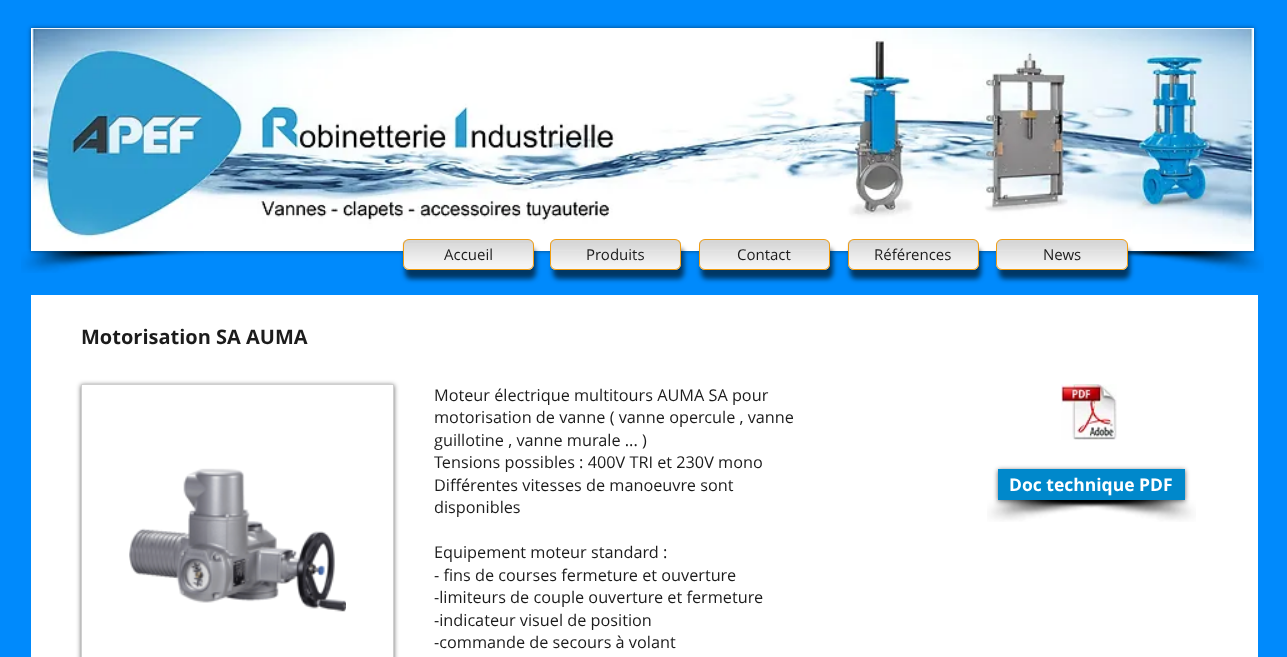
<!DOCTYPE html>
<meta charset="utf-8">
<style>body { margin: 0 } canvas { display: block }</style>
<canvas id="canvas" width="1287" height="657"></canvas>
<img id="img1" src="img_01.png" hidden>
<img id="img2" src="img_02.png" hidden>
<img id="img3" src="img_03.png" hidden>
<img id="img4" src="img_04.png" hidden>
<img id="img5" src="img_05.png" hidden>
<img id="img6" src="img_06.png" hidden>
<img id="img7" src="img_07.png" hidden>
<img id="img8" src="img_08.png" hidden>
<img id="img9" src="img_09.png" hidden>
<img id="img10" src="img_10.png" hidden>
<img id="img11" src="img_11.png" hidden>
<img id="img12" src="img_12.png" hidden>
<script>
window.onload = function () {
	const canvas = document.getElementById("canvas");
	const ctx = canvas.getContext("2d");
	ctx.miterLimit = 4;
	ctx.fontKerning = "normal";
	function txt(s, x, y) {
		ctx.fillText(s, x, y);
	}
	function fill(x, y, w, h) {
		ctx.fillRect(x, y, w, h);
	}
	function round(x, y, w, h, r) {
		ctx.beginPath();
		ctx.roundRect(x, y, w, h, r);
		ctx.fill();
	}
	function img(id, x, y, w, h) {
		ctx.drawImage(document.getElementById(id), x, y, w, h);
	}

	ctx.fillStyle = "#008AFC";
	fill(0, 0, 1287, 657);
	ctx.fillStyle = "rgba(0, 0, 0, 0.5)";
	ctx.filter = "blur(2px)";
	ctx.beginPath();
	ctx.rect(31, 28, 1223, 223);
	ctx.fill();
	ctx.filter = "none";
	ctx.fillStyle = "#FFFFFF";
	fill(31, 28, 1223, 223);
	img("img1", 32, 28, 1221, 216);
	img("img2", 21, 251, 183, 22);
	img("img3", 1128, 251, 136, 22);
	ctx.fillStyle = "rgba(0, 0, 0, 0.6)";
	ctx.filter = "blur(2.5px)";
	ctx.beginPath();
	ctx.roundRect(405, 248, 131, 31, 6);
	ctx.fill();
	ctx.filter = "none";
	ctx.fillStyle = "#FFFFFF";
	round(403, 239, 131, 31, 6);
	img("img4", 402, 240, 132, 30);
	ctx.beginPath();
	ctx.roundRect(403.5, 239.5, 130, 30, 5.5);
	ctx.strokeStyle = "#F09D12";
	ctx.stroke();
	img("img5", 404, 243, 128, 23);
	ctx.fillStyle = "rgba(0, 0, 0, 0.6)";
	ctx.filter = "blur(2.5px)";
	ctx.beginPath();
	ctx.roundRect(553, 248, 131, 31, 6);
	ctx.fill();
	ctx.filter = "none";
	ctx.fillStyle = "#FFFFFF";
	round(550, 239, 131, 31, 6);
	img("img6", 550, 240, 131, 30);
	ctx.beginPath();
	ctx.roundRect(550.5, 239.5, 130, 30, 5.5);
	ctx.stroke();
	ctx.fillStyle = "#E3E3E3";
	fill(552, 250, 128, 1);
	ctx.fillStyle = "rgba(0, 0, 0, 0.6)";
	ctx.filter = "blur(2.5px)";
	ctx.beginPath();
	ctx.roundRect(701, 248, 132, 31, 6);
	ctx.fill();
	ctx.filter = "none";
	ctx.fillStyle = "#FFFFFF";
	round(699, 239, 131, 31, 6);
	img("img7", 699, 240, 131, 30);
	ctx.beginPath();
	ctx.roundRect(699.5, 239.5, 130, 30, 5.5);
	ctx.stroke();
	ctx.fillStyle = "#E3E3E3";
	fill(700, 250, 128, 1);
	ctx.fillStyle = "rgba(0, 0, 0, 0.6)";
	ctx.filter = "blur(2.5px)";
	ctx.beginPath();
	ctx.roundRect(850, 248, 131, 31, 6);
	ctx.fill();
	ctx.filter = "none";
	ctx.fillStyle = "#FFFFFF";
	round(848, 239, 131, 31, 6);
	img("img4", 847, 240, 132, 30);
	ctx.beginPath();
	ctx.roundRect(848.5, 239.5, 130, 30, 5.5);
	ctx.stroke();
	img("img5", 849, 243, 128, 23);
	ctx.fillStyle = "rgba(0, 0, 0, 0.6)";
	ctx.filter = "blur(2.5px)";
	ctx.beginPath();
	ctx.roundRect(999, 248, 131, 31, 6);
	ctx.fill();
	ctx.filter = "none";
	ctx.fillStyle = "#FFFFFF";
	round(996, 239, 132, 31, 6);
	img("img8", 996, 240, 132, 30);
	ctx.beginPath();
	ctx.roundRect(996.5, 239.5, 131, 30, 5.5);
	ctx.stroke();
	ctx.fillStyle = "#E3E3E3";
	fill(998, 250, 128, 1);
	ctx.fillStyle = "#FFFFFF";
	fill(31, 295, 1227, 362);
	ctx.fillStyle = "rgba(0, 0, 0, 0.6)";
	ctx.filter = "blur(2.5px)";
	ctx.beginPath();
	ctx.rect(81, 385, 313, 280);
	ctx.fill();
	ctx.filter = "none";
	ctx.fillStyle = "#FFFFFF";
	ctx.beginPath();
	ctx.rect(81.5, 384.5, 312, 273);
	ctx.fill();
	ctx.strokeStyle = "#CFCFCF";
	ctx.stroke();
	img("img9", 129, 468, 217, 144);
	img("img10", 1061, 384, 56, 56);
	img("img11", 987, 500, 191, 22);
	img("img12", 1004, 500, 192, 22);
	ctx.fillStyle = "rgba(0, 0, 0, 0.6)";
	ctx.filter = "blur(2.5px)";
	ctx.beginPath();
	ctx.rect(998, 470, 187, 31);
	ctx.fill();
	ctx.filter = "none";
	ctx.fillStyle = "#0088CB";
	fill(998, 469, 187, 31);
	ctx.font = "15px Open Sans";
	ctx.fillStyle = "#1C1C1C";
	txt("Accueil", 444, 260);
	txt("Produits", 586, 260);
	txt("Contact", 737, 260);
	txt("Références", 874, 260);
	txt("News", 1043, 260);
	ctx.font = "bold 20px Open Sans";
	txt("Motorisation SA AUMA", 81, 344);
	ctx.font = "16.25px Open Sans";
	txt("Moteur électrique multitours AUMA SA pour", 434, 401);
	txt("motorisation de vanne ( vanne opercule , vanne", 434, 423);
	txt("guillotine , vanne murale ... )", 434, 446);
	txt("Tensions possibles : 400V TRI et 230V mono", 434, 468);
	txt("Différentes vitesses de manoeuvre sont", 434, 491);
	txt("disponibles", 434, 513);
	txt("Equipement moteur standard :", 434, 558);
	txt("- fins de courses fermeture et ouverture", 434, 581);
	txt("-limiteurs de couple ouverture et fermeture", 434, 603);
	txt("-indicateur visuel de position", 434, 626);
	txt("-commande de secours à volant", 434, 648);
	ctx.font = "bold 17.5px Open Sans";
	ctx.fillStyle = "#FFFFFF";
	txt("Doc technique PDF", 1009, 491);
};
</script>
